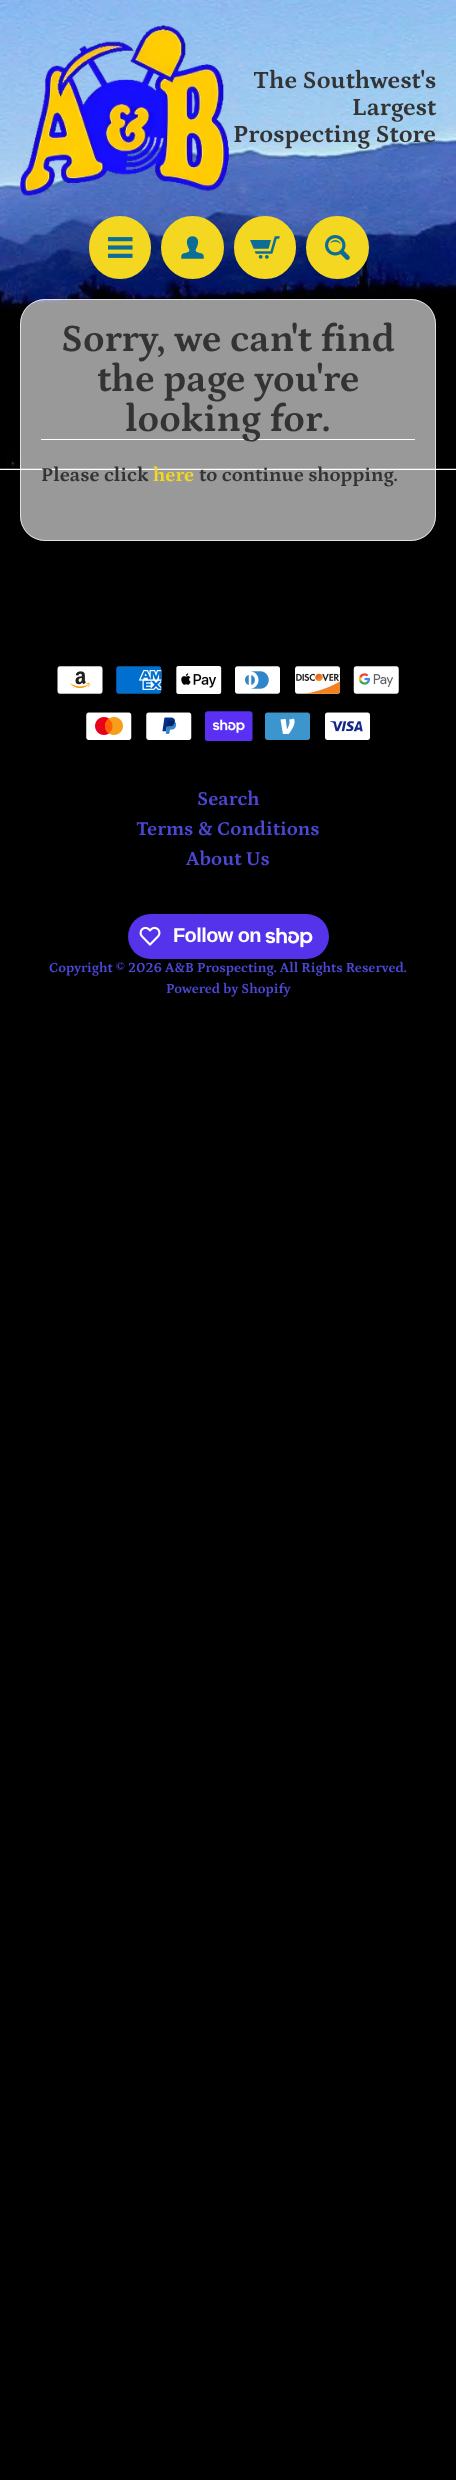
<!DOCTYPE html>
<meta charset="utf-8">
<style>body { margin: 0 } canvas { display: block }</style>
<canvas id="canvas" width="456" height="2480"></canvas>
<img id="img1" src="img_01.png" hidden>
<img id="img2" src="img_02.png" hidden>
<img id="img3" src="img_03.png" hidden>
<img id="img4" src="img_04.png" hidden>
<img id="img5" src="img_05.png" hidden>
<img id="img6" src="img_06.png" hidden>
<img id="img7" src="img_07.png" hidden>
<img id="img8" src="img_08.png" hidden>
<img id="img9" src="img_09.png" hidden>
<img id="img10" src="img_10.png" hidden>
<img id="img11" src="img_11.png" hidden>
<img id="img12" src="img_12.png" hidden>
<img id="img13" src="img_13.png" hidden>
<img id="img14" src="img_14.png" hidden>
<img id="img15" src="img_15.png" hidden>
<img id="img16" src="img_16.png" hidden>
<img id="img17" src="img_17.png" hidden>
<img id="img18" src="img_18.png" hidden>
<img id="img19" src="img_19.png" hidden>
<script>
window.onload = function () {
	const canvas = document.getElementById("canvas");
	const ctx = canvas.getContext("2d");
	ctx.miterLimit = 4;
	ctx.fontKerning = "normal";
	function txt(s, x, y) {
		ctx.fillText(s, x, y);
	}
	function fill(x, y, w, h) {
		ctx.fillRect(x, y, w, h);
	}
	function round(x, y, w, h, r) {
		ctx.beginPath();
		ctx.roundRect(x, y, w, h, r);
		ctx.fill();
	}
	function img(id, x, y, w, h) {
		ctx.drawImage(document.getElementById(id), x, y, w, h);
	}

	ctx.fillStyle = "#000000";
	fill(0, 0, 456, 2480);
	img("img1", 0, 0, 456, 470);
	img("img2", 20, 25, 209, 171);
	ctx.fillStyle = "#F3D721";
	ctx.beginPath();
	ctx.roundRect(91, 218, 58, 59, 29);
	ctx.fill();
	ctx.strokeStyle = "#F3D721";
	ctx.lineWidth = 4;
	ctx.stroke();
	img("img3", 108, 237, 25, 21);
	ctx.beginPath();
	ctx.arc(192.5, 247.5, 29.5, 0, Math.PI * 2);
	ctx.fill();
	ctx.stroke();
	img("img4", 181, 236, 23, 23);
	ctx.beginPath();
	ctx.roundRect(236, 218, 58, 59, 29);
	ctx.fill();
	ctx.stroke();
	img("img5", 250, 236, 30, 23);
	ctx.beginPath();
	ctx.arc(337.5, 247.5, 29.5, 0, Math.PI * 2);
	ctx.fill();
	ctx.stroke();
	img("img6", 325, 235, 25, 25);
	ctx.fillStyle = "rgba(255, 255, 255, 0.6)";
	round(20, 299, 416, 242, 25);
	ctx.beginPath();
	ctx.roundRect(20.5, 299.5, 415, 241, 24.5);
	ctx.strokeStyle = "rgba(255, 255, 255, 0.7)";
	ctx.lineWidth = 1;
	ctx.stroke();
	ctx.fillStyle = "#FFFFFF";
	fill(41, 439, 374, 1);
	img("img7", 57, 666, 46, 28);
	img("img8", 116, 666, 46, 28);
	img("img9", 176, 666, 46, 28);
	img("img10", 235, 666, 45, 28);
	img("img11", 295, 666, 46, 28);
	img("img12", 353, 666, 46, 28);
	img("img13", 86, 712, 46, 28);
	img("img14", 146, 712, 46, 28);
	img("img15", 205, 711, 48, 30);
	img("img16", 265, 712, 45, 28);
	img("img17", 325, 712, 45, 28);
	ctx.fillStyle = "#5433EB";
	round(128, 914, 201, 45, 22.5);
	img("img18", 139, 926, 22, 20);
	img("img19", 265, 928, 48, 20);
	ctx.font = "bold 25px Petrona";
	ctx.fillStyle = "#333333";
	txt("The Southwest's", 253, 88);
	txt("Largest", 352, 115);
	txt("Prospecting Store", 233, 142);
	ctx.font = "bold 39px Petrona";
	txt("Sorry, we can't find", 61, 351);
	txt("the page you're", 97, 391);
	txt("looking for.", 125, 431);
	ctx.font = "bold 20px Petrona";
	txt("Please click", 41, 481);
	ctx.fillStyle = "#F3D721";
	txt("here", 153, 481);
	ctx.fillStyle = "#333333";
	txt("to continue shopping.", 199, 481);
	ctx.fillStyle = "#4C48D6";
	txt("Search", 197, 805);
	txt("Terms & Conditions", 136, 835);
	txt("About Us", 186, 865);
	ctx.letterSpacing = "-0.6px";
	ctx.font = "bold 20px Liberation Sans";
	ctx.fillStyle = "#FFFFFF";
	txt("Follow on", 173, 942);
	ctx.letterSpacing = "0px";
	ctx.font = "bold 14px Petrona";
	ctx.fillStyle = "#4C48D6";
	txt("Copyright © 2026 A&B Prospecting. All Rights Reserved.", 49, 972);
	txt("Powered by Shopify", 166, 993);
};
</script>
